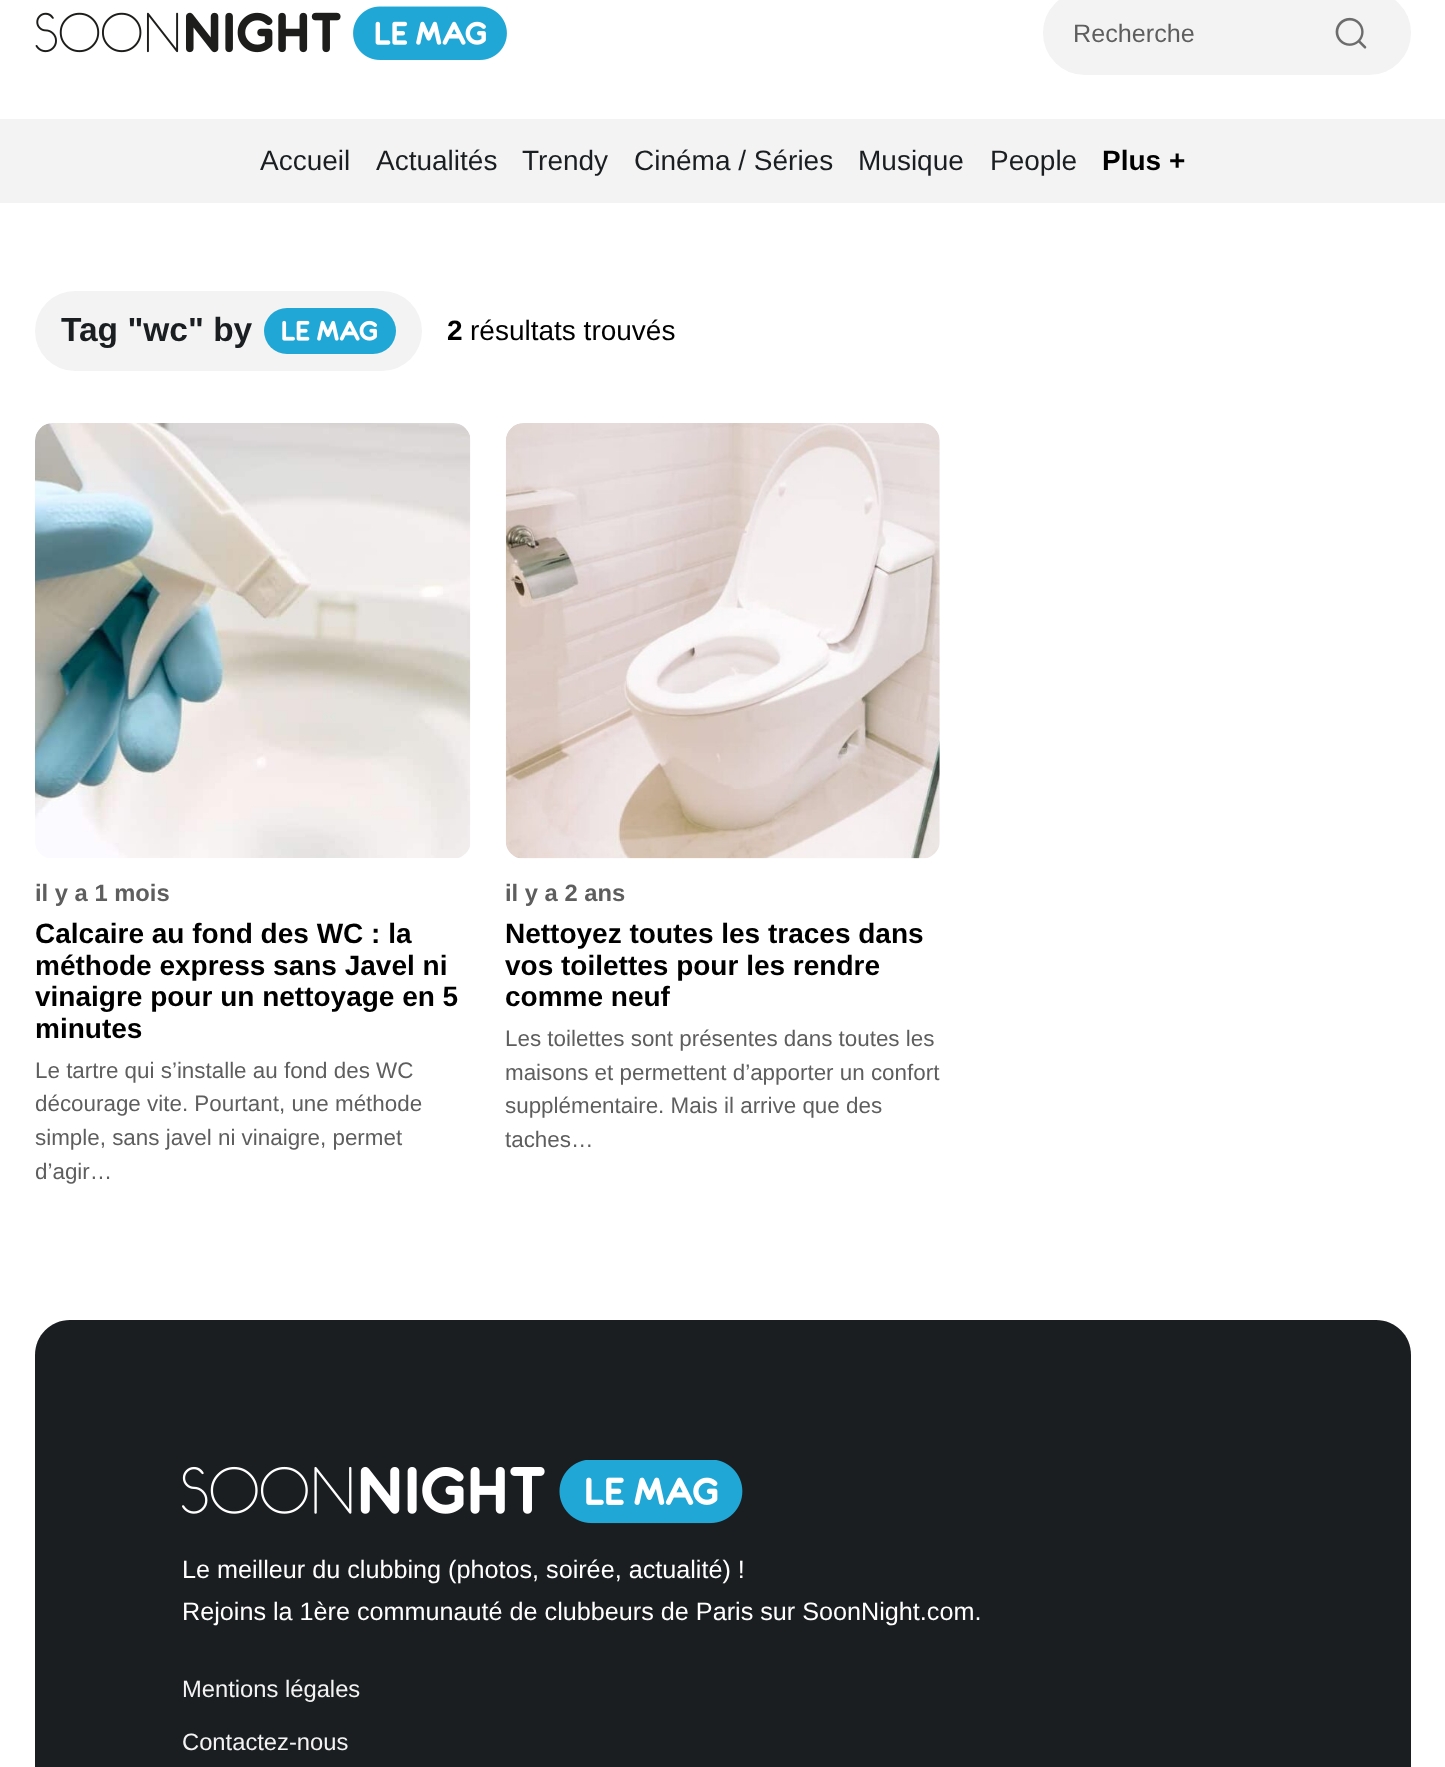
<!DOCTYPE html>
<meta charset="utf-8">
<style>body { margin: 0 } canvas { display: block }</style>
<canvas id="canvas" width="1445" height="1767"></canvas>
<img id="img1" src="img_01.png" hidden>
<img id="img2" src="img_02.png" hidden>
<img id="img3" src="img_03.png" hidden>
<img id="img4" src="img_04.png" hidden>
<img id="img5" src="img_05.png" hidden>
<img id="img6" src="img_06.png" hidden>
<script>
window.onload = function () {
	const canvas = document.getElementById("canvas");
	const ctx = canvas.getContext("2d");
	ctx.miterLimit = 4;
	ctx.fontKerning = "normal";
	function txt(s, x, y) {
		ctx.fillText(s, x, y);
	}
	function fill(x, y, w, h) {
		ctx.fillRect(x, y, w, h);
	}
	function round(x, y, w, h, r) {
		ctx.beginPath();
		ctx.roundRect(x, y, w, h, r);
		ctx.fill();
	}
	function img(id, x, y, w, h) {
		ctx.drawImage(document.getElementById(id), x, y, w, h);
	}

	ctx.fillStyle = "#FFFFFF";
	fill(0, 0, 1445, 1767);
	img("img1", 35, 6, 472, 54);
	ctx.fillStyle = "#F3F3F3";
	ctx.beginPath();
	ctx.roundRect(1045, -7, 364, 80, 40);
	ctx.fill();
	ctx.strokeStyle = "#F3F3F3";
	ctx.lineWidth = 4;
	ctx.stroke();
	img("img2", 1335, 17, 32, 32);
	fill(0, 119, 1445, 84);
	round(35, 291, 387, 80, 40);
	ctx.fillStyle = "#21A7D5";
	round(264, 308, 132, 46, 23);
	img("img3", 282, 320, 95, 21);
	img("img4", 35, 423, 436, 435);
	img("img5", 505, 423, 435, 436);
	ctx.fillStyle = "#1A1E21";
	ctx.beginPath();
	ctx.moveTo(70, 1320);
	ctx.lineTo(1376, 1320);
	ctx.bezierCurveTo(1395.5, 1320, 1411, 1335.5, 1411, 1355);
	ctx.lineTo(1411, 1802);
	ctx.lineTo(35, 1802);
	ctx.lineTo(35, 1355);
	ctx.bezierCurveTo(35, 1335.5, 50.5, 1320, 70, 1320);
	ctx.closePath();
	ctx.fill();
	img("img6", 182, 1460, 561, 64);
	ctx.font = "25.2px Liberation Sans";
	ctx.fillStyle = "#5E5E5E";
	txt("Recherche", 1073, 42);
	ctx.font = "28px Liberation Sans";
	ctx.fillStyle = "#1A1E21";
	txt("Accueil", 260, 170);
	txt("Actualités", 376, 170);
	txt("Trendy", 522, 170);
	txt("Cinéma / Séries", 634, 170);
	txt("Musique", 858, 170);
	txt("People", 990, 170);
	ctx.font = "bold 28px Liberation Sans";
	ctx.fillStyle = "#000000";
	txt("Plus +", 1102, 170);
	ctx.font = "bold 33.5px Liberation Sans";
	ctx.fillStyle = "#1A1E21";
	txt("Tag \"wc\" by", 61, 341);
	ctx.font = "bold 28px Liberation Sans";
	ctx.fillStyle = "#000000";
	txt("2", 447, 340);
	ctx.font = "28px Liberation Sans";
	txt("résultats trouvés", 470, 340);
	ctx.font = "bold 23.75px Liberation Sans";
	ctx.fillStyle = "#5E5E5E";
	txt("il y a 1 mois", 35, 901);
	ctx.font = "bold 28px Liberation Sans";
	ctx.fillStyle = "#000000";
	txt("Calcaire au fond des WC : la", 35, 943);
	txt("méthode express sans Javel ni", 35, 975);
	txt("vinaigre pour un nettoyage en 5", 35, 1006);
	txt("minutes", 35, 1038);
	ctx.font = "22.4px Liberation Sans";
	ctx.fillStyle = "#5E5E5E";
	txt("Le tartre qui s’installe au fond des WC", 35, 1078);
	txt("décourage vite. Pourtant, une méthode", 35, 1111);
	txt("simple, sans javel ni vinaigre, permet", 35, 1145);
	txt("d’agir…", 35, 1179);
	ctx.font = "bold 23.75px Liberation Sans";
	txt("il y a 2 ans", 505, 901);
	ctx.font = "bold 28px Liberation Sans";
	ctx.fillStyle = "#000000";
	txt("Nettoyez toutes les traces dans", 505, 943);
	txt("vos toilettes pour les rendre", 505, 975);
	txt("comme neuf", 505, 1006);
	ctx.font = "22.4px Liberation Sans";
	ctx.fillStyle = "#5E5E5E";
	txt("Les toilettes sont présentes dans toutes les", 505, 1046);
	txt("maisons et permettent d’apporter un confort", 505, 1080);
	txt("supplémentaire. Mais il arrive que des", 505, 1113);
	txt("taches…", 505, 1147);
	ctx.font = "25.2px Liberation Sans";
	ctx.fillStyle = "#FFFFFF";
	txt("Le meilleur du clubbing (photos, soirée, actualité) !", 182, 1578);
	txt("Rejoins la 1ère communauté de clubbeurs de Paris sur SoonNight.com.", 182, 1620);
	ctx.font = "23.75px Liberation Sans";
	ctx.fillStyle = "#F3F3F3";
	txt("Mentions légales", 182, 1697);
	txt("Contactez-nous", 182, 1750);
};
</script>
